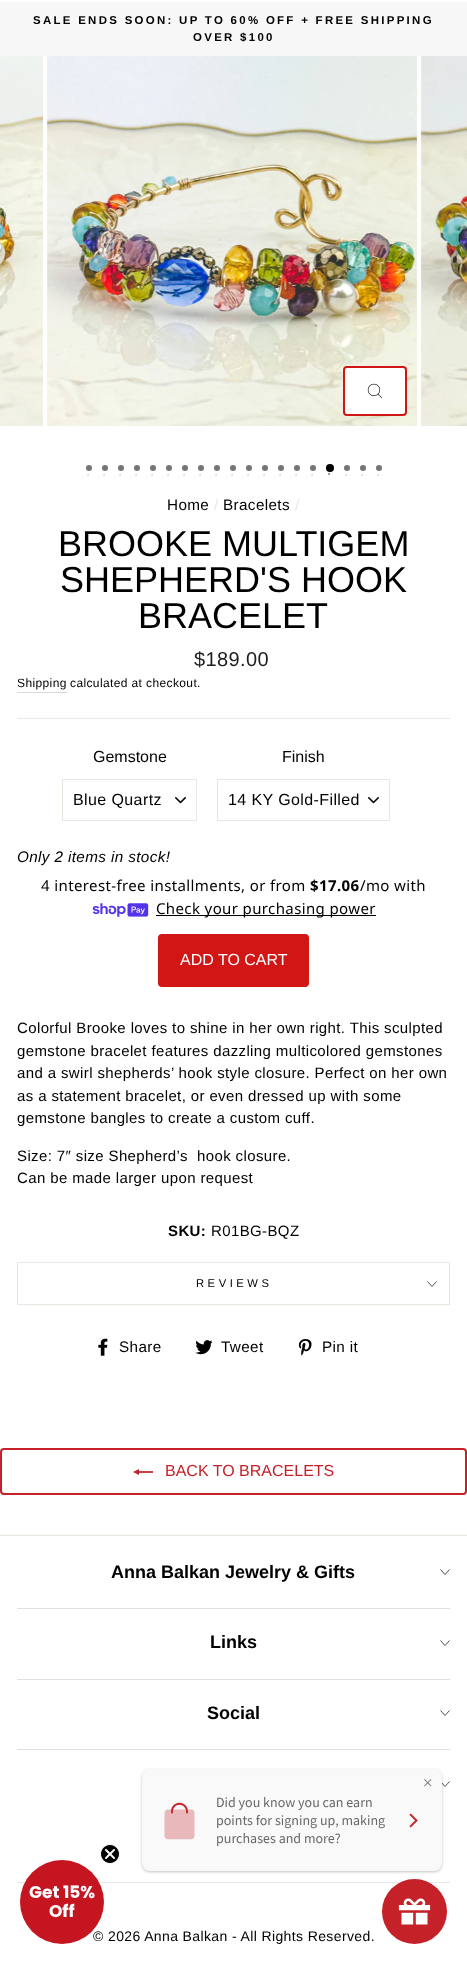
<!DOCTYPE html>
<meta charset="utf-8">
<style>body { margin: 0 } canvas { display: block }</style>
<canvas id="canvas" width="467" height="1964"></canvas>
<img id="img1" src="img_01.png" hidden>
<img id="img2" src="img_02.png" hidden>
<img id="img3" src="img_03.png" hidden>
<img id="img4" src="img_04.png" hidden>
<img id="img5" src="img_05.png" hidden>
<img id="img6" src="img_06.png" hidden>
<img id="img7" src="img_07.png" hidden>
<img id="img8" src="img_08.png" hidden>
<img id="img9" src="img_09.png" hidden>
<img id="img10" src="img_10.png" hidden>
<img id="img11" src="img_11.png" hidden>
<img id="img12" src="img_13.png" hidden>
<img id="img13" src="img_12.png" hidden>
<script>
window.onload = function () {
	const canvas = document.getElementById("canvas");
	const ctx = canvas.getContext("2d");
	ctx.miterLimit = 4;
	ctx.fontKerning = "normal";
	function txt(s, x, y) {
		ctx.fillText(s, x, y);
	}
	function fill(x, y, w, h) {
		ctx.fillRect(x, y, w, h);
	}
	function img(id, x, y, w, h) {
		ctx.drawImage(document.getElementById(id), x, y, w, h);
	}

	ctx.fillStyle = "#FFFFFF";
	fill(0, 0, 467, 1964);
	ctx.fillStyle = "#F7F7F7";
	fill(0, 2, 467, 54);
	img("img1", 0, 56, 43, 370);
	img("img2", 47, 56, 370, 370);
	ctx.fillStyle = "#FFFFFF";
	ctx.beginPath();
	ctx.roundRect(344, 367, 62, 48, 3);
	ctx.fill();
	ctx.strokeStyle = "#D21515";
	ctx.lineWidth = 2;
	ctx.stroke();
	img("img3", 367, 383, 15, 15);
	img("img4", 421, 56, 46, 370);
	ctx.fillStyle = "#9E9E9E";
	ctx.beginPath();
	ctx.arc(89, 468, 3, 0, Math.PI * 2);
	ctx.fill();
	ctx.fillStyle = "rgba(0, 0, 0, 0.25)";
	ctx.beginPath();
	ctx.arc(89, 468, 3, 0, Math.PI * 2);
	ctx.fill();
	ctx.fillStyle = "#9E9E9E";
	ctx.beginPath();
	ctx.arc(105, 468, 3, 0, Math.PI * 2);
	ctx.fill();
	ctx.fillStyle = "rgba(0, 0, 0, 0.25)";
	ctx.beginPath();
	ctx.arc(105, 468, 3, 0, Math.PI * 2);
	ctx.fill();
	ctx.fillStyle = "#9E9E9E";
	ctx.beginPath();
	ctx.arc(121, 468, 3, 0, Math.PI * 2);
	ctx.fill();
	ctx.fillStyle = "rgba(0, 0, 0, 0.25)";
	ctx.beginPath();
	ctx.arc(121, 468, 3, 0, Math.PI * 2);
	ctx.fill();
	ctx.fillStyle = "#9E9E9E";
	ctx.beginPath();
	ctx.arc(137, 468, 3, 0, Math.PI * 2);
	ctx.fill();
	ctx.fillStyle = "rgba(0, 0, 0, 0.25)";
	ctx.beginPath();
	ctx.arc(137, 468, 3, 0, Math.PI * 2);
	ctx.fill();
	ctx.fillStyle = "#9E9E9E";
	ctx.beginPath();
	ctx.arc(153, 468, 3, 0, Math.PI * 2);
	ctx.fill();
	ctx.fillStyle = "rgba(0, 0, 0, 0.25)";
	ctx.beginPath();
	ctx.arc(153, 468, 3, 0, Math.PI * 2);
	ctx.fill();
	ctx.fillStyle = "#9E9E9E";
	ctx.beginPath();
	ctx.arc(169, 468, 3, 0, Math.PI * 2);
	ctx.fill();
	ctx.fillStyle = "rgba(0, 0, 0, 0.25)";
	ctx.beginPath();
	ctx.arc(169, 468, 3, 0, Math.PI * 2);
	ctx.fill();
	ctx.fillStyle = "#9E9E9E";
	ctx.beginPath();
	ctx.arc(185, 468, 3, 0, Math.PI * 2);
	ctx.fill();
	ctx.fillStyle = "rgba(0, 0, 0, 0.25)";
	ctx.beginPath();
	ctx.arc(185, 468, 3, 0, Math.PI * 2);
	ctx.fill();
	ctx.fillStyle = "#9E9E9E";
	ctx.beginPath();
	ctx.arc(201, 468, 3, 0, Math.PI * 2);
	ctx.fill();
	ctx.fillStyle = "rgba(0, 0, 0, 0.25)";
	ctx.beginPath();
	ctx.arc(201, 468, 3, 0, Math.PI * 2);
	ctx.fill();
	ctx.fillStyle = "#9E9E9E";
	ctx.beginPath();
	ctx.arc(217, 468, 3, 0, Math.PI * 2);
	ctx.fill();
	ctx.fillStyle = "rgba(0, 0, 0, 0.25)";
	ctx.beginPath();
	ctx.arc(217, 468, 3, 0, Math.PI * 2);
	ctx.fill();
	ctx.fillStyle = "#9E9E9E";
	ctx.beginPath();
	ctx.arc(233, 468, 3, 0, Math.PI * 2);
	ctx.fill();
	ctx.fillStyle = "rgba(0, 0, 0, 0.25)";
	ctx.beginPath();
	ctx.arc(233, 468, 3, 0, Math.PI * 2);
	ctx.fill();
	ctx.fillStyle = "#9E9E9E";
	ctx.beginPath();
	ctx.arc(249, 468, 3, 0, Math.PI * 2);
	ctx.fill();
	ctx.fillStyle = "rgba(0, 0, 0, 0.25)";
	ctx.beginPath();
	ctx.arc(249, 468, 3, 0, Math.PI * 2);
	ctx.fill();
	ctx.fillStyle = "#9E9E9E";
	ctx.beginPath();
	ctx.arc(265, 468, 3, 0, Math.PI * 2);
	ctx.fill();
	ctx.fillStyle = "rgba(0, 0, 0, 0.25)";
	ctx.beginPath();
	ctx.arc(265, 468, 3, 0, Math.PI * 2);
	ctx.fill();
	ctx.fillStyle = "#9E9E9E";
	ctx.beginPath();
	ctx.arc(281, 468, 3, 0, Math.PI * 2);
	ctx.fill();
	ctx.fillStyle = "rgba(0, 0, 0, 0.25)";
	ctx.beginPath();
	ctx.arc(281, 468, 3, 0, Math.PI * 2);
	ctx.fill();
	ctx.fillStyle = "#9E9E9E";
	ctx.beginPath();
	ctx.arc(297, 468, 3, 0, Math.PI * 2);
	ctx.fill();
	ctx.fillStyle = "rgba(0, 0, 0, 0.25)";
	ctx.beginPath();
	ctx.arc(297, 468, 3, 0, Math.PI * 2);
	ctx.fill();
	ctx.fillStyle = "#9E9E9E";
	ctx.beginPath();
	ctx.arc(313, 468, 3, 0, Math.PI * 2);
	ctx.fill();
	ctx.fillStyle = "rgba(0, 0, 0, 0.25)";
	ctx.beginPath();
	ctx.arc(313, 468, 3, 0, Math.PI * 2);
	ctx.fill();
	ctx.fillStyle = "#000000";
	ctx.beginPath();
	ctx.arc(330, 468, 4, 0, Math.PI * 2);
	ctx.fill();
	ctx.fillStyle = "#9E9E9E";
	ctx.beginPath();
	ctx.arc(347, 468, 3, 0, Math.PI * 2);
	ctx.fill();
	ctx.fillStyle = "rgba(0, 0, 0, 0.25)";
	ctx.beginPath();
	ctx.arc(347, 468, 3, 0, Math.PI * 2);
	ctx.fill();
	ctx.fillStyle = "#9E9E9E";
	ctx.beginPath();
	ctx.arc(363, 468, 3, 0, Math.PI * 2);
	ctx.fill();
	ctx.fillStyle = "rgba(0, 0, 0, 0.25)";
	ctx.beginPath();
	ctx.arc(363, 468, 3, 0, Math.PI * 2);
	ctx.fill();
	ctx.fillStyle = "#9E9E9E";
	ctx.beginPath();
	ctx.arc(379, 468, 3, 0, Math.PI * 2);
	ctx.fill();
	ctx.fillStyle = "rgba(0, 0, 0, 0.25)";
	ctx.beginPath();
	ctx.arc(379, 468, 3, 0, Math.PI * 2);
	ctx.fill();
	ctx.fillStyle = "#D9D9D9";
	fill(17, 692, 50, 1);
	ctx.fillStyle = "#E8E8E1";
	fill(17, 718, 433, 1);
	img("img5", 175, 797, 11, 7);
	ctx.strokeStyle = "#E8E8E1";
	ctx.lineWidth = 1;
	ctx.strokeRect(62.5, 779.5, 134, 41);
	img("img5", 368, 797, 11, 7);
	ctx.strokeRect(217.5, 779.5, 172, 41);
	img("img6", 92, 903, 57, 14);
	ctx.fillStyle = "#000000";
	fill(156, 915, 220, 1);
	ctx.fillStyle = "#D21515";
	ctx.beginPath();
	ctx.roundRect(159, 935, 149, 51, 3);
	ctx.fill();
	ctx.strokeStyle = "#D21515";
	ctx.lineWidth = 2;
	ctx.stroke();
	ctx.fillStyle = "#E8E8E1";
	fill(17, 1304, 433, 1);
	fill(17, 1262, 433, 1);
	fill(449, 1262, 1, 42);
	fill(17, 1262, 1, 42);
	ctx.beginPath();
	ctx.moveTo(427.5, 1281.5);
	ctx.lineTo(432, 1286.5);
	ctx.lineTo(436.5, 1281.5);
	ctx.strokeStyle = "#000000";
	ctx.lineWidth = 0.7;
	ctx.stroke();
	img("img7", 98, 1338, 10, 18);
	img("img8", 195, 1340, 18, 15);
	img("img9", 298, 1339, 14, 17);
	ctx.beginPath();
	ctx.roundRect(1, 1449, 465, 45, 3);
	ctx.strokeStyle = "#C42128";
	ctx.lineWidth = 2;
	ctx.stroke();
	img("img10", 133, 1469, 20, 6);
	fill(0, 1535, 467, 1);
	ctx.beginPath();
	ctx.moveTo(440.5, 1569.5);
	ctx.lineTo(445, 1574.5);
	ctx.lineTo(449.5, 1569.5);
	ctx.strokeStyle = "#000000";
	ctx.lineWidth = 0.7;
	ctx.stroke();
	ctx.fillStyle = "#E0E0E0";
	fill(17, 1608, 433, 1);
	ctx.beginPath();
	ctx.moveTo(440.5, 1640.5);
	ctx.lineTo(445, 1645.5);
	ctx.lineTo(449.5, 1640.5);
	ctx.stroke();
	fill(17, 1679, 433, 1);
	ctx.beginPath();
	ctx.moveTo(440.5, 1710.5);
	ctx.lineTo(445, 1715.5);
	ctx.lineTo(449.5, 1710.5);
	ctx.stroke();
	fill(17, 1749, 433, 1);
	ctx.beginPath();
	ctx.moveTo(440.5, 1781.5);
	ctx.lineTo(445, 1786.5);
	ctx.lineTo(449.5, 1781.5);
	ctx.stroke();
	ctx.fillStyle = "#E8E8E1";
	fill(17, 1882, 433, 1);
	img("img11", 140, 1768, 304, 106);
	img("img12", 382, 1879, 65, 65);
	ctx.letterSpacing = "2.3px";
	ctx.font = "bold 11.45px Liberation Sans";
	ctx.fillStyle = "#000000";
	txt("SALE ENDS SOON: UP TO 60% OFF + FREE SHIPPING", 33, 24);
	txt("OVER $100", 193, 41);
	ctx.letterSpacing = "0px";
	ctx.font = "6px Liberation Serif";
	ctx.fillStyle = "#BFBFBF";
	txt("•", 87, 477);
	txt("•", 103, 477);
	txt("•", 119, 477);
	txt("•", 135, 477);
	txt("•", 151, 477);
	txt("•", 167, 477);
	txt("•", 183, 477);
	txt("•", 199, 477);
	txt("•", 215, 477);
	txt("•", 231, 477);
	txt("•", 247, 477);
	txt("•", 263, 477);
	txt("•", 279, 477);
	txt("•", 295, 477);
	txt("•", 311, 477);
	ctx.fillStyle = "#000000";
	txt("•", 328, 476);
	ctx.fillStyle = "#BFBFBF";
	txt("•", 345, 477);
	txt("•", 361, 477);
	txt("•", 377, 477);
	ctx.letterSpacing = "0.38px";
	ctx.font = "15.25px Liberation Sans";
	ctx.fillStyle = "#000000";
	txt("Home", 167, 510);
	ctx.fillStyle = "#E8E8E1";
	txt("/", 214, 510);
	ctx.fillStyle = "#000000";
	txt("Bracelets", 223, 510);
	ctx.fillStyle = "#E8E8E1";
	txt("/", 295, 510);
	ctx.letterSpacing = "0px";
	ctx.font = "36px Liberation Sans";
	ctx.fillStyle = "#000000";
	txt("BROOKE MULTIGEM", 58, 556);
	txt("SHEPHERD'S HOOK", 60, 592);
	txt("BRACELET", 138, 628);
	ctx.letterSpacing = "0.38px";
	ctx.font = "20px Liberation Sans";
	ctx.fillStyle = "#1C1D1D";
	txt("$189.00", 194, 666);
	ctx.font = "12px Liberation Sans";
	ctx.fillStyle = "#000000";
	txt("Shipping", 17, 687);
	txt("calculated at checkout.", 70, 687);
	ctx.letterSpacing = "0px";
	ctx.font = "16px Liberation Sans";
	txt("Gemstone", 93, 762);
	ctx.letterSpacing = "0.4px";
	txt("Blue Quartz", 73, 805);
	ctx.letterSpacing = "0px";
	txt("Finish", 282, 762);
	ctx.letterSpacing = "0.4px";
	txt("14 KY Gold-Filled", 228, 805);
	ctx.letterSpacing = "0.38px";
	ctx.font = "italic 15.25px Liberation Sans";
	txt("Only 2 items in stock!", 17, 862);
	ctx.font = "15px Noto Sans";
	txt("4 interest-free installments, or from", 41, 891);
	ctx.font = "bold 15px Noto Sans";
	txt("$17.06", 310, 891);
	ctx.font = "15px Noto Sans";
	txt("/mo with", 360, 891);
	txt("Check your purchasing power", 156, 914);
	ctx.letterSpacing = "0px";
	ctx.font = "16px Liberation Sans";
	ctx.fillStyle = "#FFFFFF";
	txt("ADD TO CART", 180, 965);
	ctx.letterSpacing = "0.38px";
	ctx.font = "15px Liberation Sans";
	ctx.fillStyle = "#000000";
	txt("Colorful Brooke loves to shine in her own right. This sculpted", 17, 1033);
	txt("gemstone bracelet features dazzling multicolored gemstones", 17, 1056);
	txt("and a swirl shepherds’ hook style closure. Perfect on her own", 17, 1078);
	txt("as a statement bracelet, or even dressed up with some", 17, 1101);
	txt("gemstone bangles to create a custom cuff.", 17, 1123);
	txt("Size: 7″ size Shepherd’s  hook closure.", 17, 1161);
	txt("Can be made larger upon request", 17, 1183);
	ctx.font = "bold 15px Liberation Sans";
	txt("SKU:", 168, 1236);
	ctx.font = "15px Liberation Sans";
	txt("R01BG-BQZ", 211, 1236);
	ctx.letterSpacing = "3.5px";
	ctx.font = "11.25px Liberation Sans";
	txt("REVIEWS", 196, 1287);
	ctx.letterSpacing = "0.38px";
	ctx.font = "15.25px Liberation Sans";
	txt("Share", 119, 1352);
	txt("Tweet", 221, 1352);
	txt("Pin it", 322, 1352);
	ctx.letterSpacing = "0px";
	ctx.font = "16px Liberation Sans";
	ctx.fillStyle = "#C42128";
	txt("BACK TO BRACELETS", 165, 1476);
	ctx.font = "bold 18px Liberation Sans";
	ctx.fillStyle = "#000000";
	txt("Anna Balkan Jewelry & Gifts", 111, 1578);
	txt("Links", 210, 1648);
	txt("Social", 207, 1719);
	ctx.letterSpacing = "0.38px";
	ctx.font = "14px Liberation Sans";
	txt("© 2026 Anna Balkan - All Rights Reserved.", 93, 1941);
	ctx.fillStyle = "#C41520";
	ctx.beginPath();
	ctx.arc(62, 1902, 42, 0, Math.PI * 2);
	ctx.fill();
	img("img13", 100, 1844, 20, 20);
	ctx.letterSpacing = "0px";
	ctx.font = "bold 17px Poppins";
	ctx.fillStyle = "#FFFFFF";
	txt("Get 15%", 29, 1898);
	txt("Off", 49, 1917);
};
</script>
